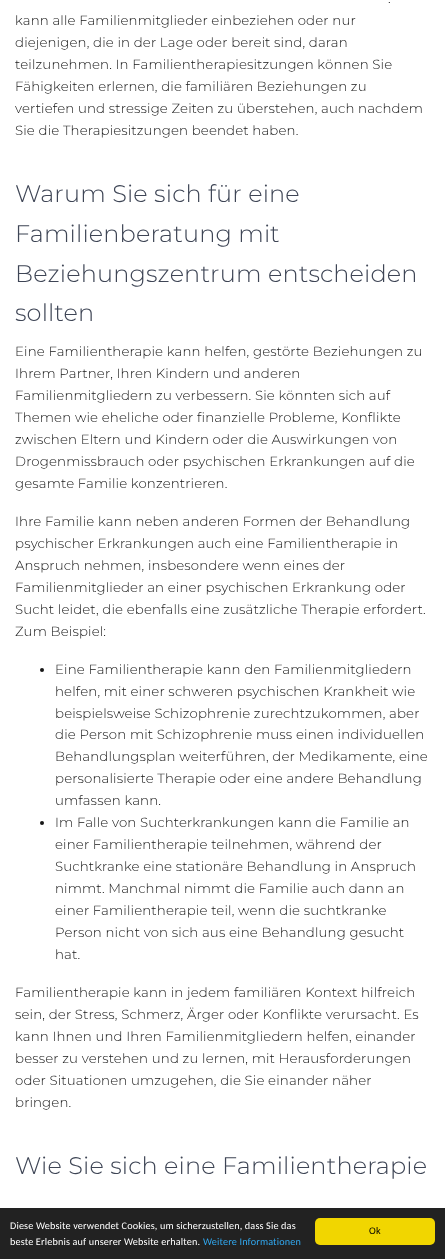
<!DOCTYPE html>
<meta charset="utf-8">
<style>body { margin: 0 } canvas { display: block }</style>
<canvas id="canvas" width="445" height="1259"></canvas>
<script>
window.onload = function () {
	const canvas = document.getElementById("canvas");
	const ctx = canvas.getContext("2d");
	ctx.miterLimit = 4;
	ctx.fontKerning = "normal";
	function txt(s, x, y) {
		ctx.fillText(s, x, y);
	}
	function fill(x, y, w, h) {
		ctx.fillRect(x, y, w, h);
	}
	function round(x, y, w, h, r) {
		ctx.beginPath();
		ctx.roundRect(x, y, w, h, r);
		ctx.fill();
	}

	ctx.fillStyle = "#FFFFFF";
	fill(0, 0, 445, 1259);
	ctx.fillStyle = "#161616";
	ctx.beginPath();
	ctx.arc(42, 670, 2, 0, Math.PI * 2);
	ctx.fill();
	ctx.beginPath();
	ctx.arc(42, 823, 2, 0, Math.PI * 2);
	ctx.fill();
	ctx.fillStyle = "#222222";
	fill(0, 1208, 445, 51);
	ctx.fillStyle = "#F1D600";
	round(315, 1218, 120, 27, 5);
	ctx.letterSpacing = "0.15px";
	ctx.font = "300 13.3px Montserrat";
	ctx.fillStyle = "#161616";
	txt(".", 388, 3);
	txt("kann alle Familienmitglieder einbeziehen oder nur", 15, 25);
	txt("diejenigen, die in der Lage oder bereit sind, daran", 15, 47);
	txt("teilzunehmen. In Familientherapiesitzungen können Sie", 15, 69);
	txt("Fähigkeiten erlernen, die familiären Beziehungen zu", 15, 91);
	txt("vertiefen und stressige Zeiten zu überstehen, auch nachdem", 15, 113);
	txt("Sie die Therapiesitzungen beendet haben.", 15, 135);
	ctx.font = "300 24px Montserrat";
	ctx.fillStyle = "#3E4555";
	txt("Warum Sie sich für eine", 15, 202);
	txt("Familienberatung mit", 15, 242);
	txt("Beziehungszentrum entscheiden", 15, 282);
	txt("sollten", 15, 321);
	ctx.font = "300 13.3px Montserrat";
	ctx.fillStyle = "#161616";
	txt("Eine Familientherapie kann helfen, gestörte Beziehungen zu", 15, 356);
	txt("Ihrem Partner, Ihren Kindern und anderen", 15, 378);
	txt("Familienmitgliedern zu verbessern. Sie könnten sich auf", 15, 400);
	txt("Themen wie eheliche oder finanzielle Probleme, Konflikte", 15, 422);
	txt("zwischen Eltern und Kindern oder die Auswirkungen von", 15, 444);
	txt("Drogenmissbrauch oder psychischen Erkrankungen auf die", 15, 466);
	txt("gesamte Familie konzentrieren.", 15, 488);
	txt("Ihre Familie kann neben anderen Formen der Behandlung", 15, 526);
	txt("psychischer Erkrankungen auch eine Familientherapie in", 15, 548);
	txt("Anspruch nehmen, insbesondere wenn eines der", 15, 570);
	txt("Familienmitglieder an einer psychischen Erkrankung oder", 15, 592);
	txt("Sucht leidet, die ebenfalls eine zusätzliche Therapie erfordert.", 15, 614);
	txt("Zum Beispiel:", 15, 636);
	txt("Eine Familientherapie kann den Familienmitgliedern", 55, 674);
	txt("helfen, mit einer schweren psychischen Krankheit wie", 55, 696);
	txt("beispielsweise Schizophrenie zurechtzukommen, aber", 55, 718);
	txt("die Person mit Schizophrenie muss einen individuellen", 55, 739);
	txt("Behandlungsplan weiterführen, der Medikamente, eine", 55, 761);
	txt("personalisierte Therapie oder eine andere Behandlung", 55, 783);
	txt("umfassen kann.", 55, 805);
	txt("Im Falle von Suchterkrankungen kann die Familie an", 55, 827);
	txt("einer Familientherapie teilnehmen, während der", 55, 849);
	txt("Suchtkranke eine stationäre Behandlung in Anspruch", 55, 871);
	txt("nimmt. Manchmal nimmt die Familie auch dann an", 55, 893);
	txt("einer Familientherapie teil, wenn die suchtkranke", 55, 915);
	txt("Person nicht von sich aus eine Behandlung gesucht", 55, 937);
	txt("hat.", 55, 959);
	txt("Familientherapie kann in jedem familiären Kontext hilfreich", 15, 997);
	txt("sein, der Stress, Schmerz, Ärger oder Konflikte verursacht. Es", 15, 1019);
	txt("kann Ihnen und Ihren Familienmitgliedern helfen, einander", 15, 1041);
	txt("besser zu verstehen und zu lernen, mit Herausforderungen", 15, 1063);
	txt("oder Situationen umzugehen, die Sie einander näher", 15, 1085);
	txt("bringen.", 15, 1107);
	ctx.font = "300 24px Montserrat";
	ctx.fillStyle = "#3E4555";
	txt("Wie Sie sich eine Familientherapie", 15, 1174);
	ctx.font = "10.2px Carlito";
	ctx.fillStyle = "#FFFFFF";
	txt("Diese Website verwendet Cookies, um sicherzustellen, dass Sie das", 10, 1229);
	txt("beste Erlebnis auf unserer Website erhalten.", 10, 1245);
	ctx.fillStyle = "#31A8F0";
	txt("Weitere Informationen", 203, 1245);
	ctx.fillStyle = "#000000";
	txt("Ok", 369, 1234);
};
</script>
